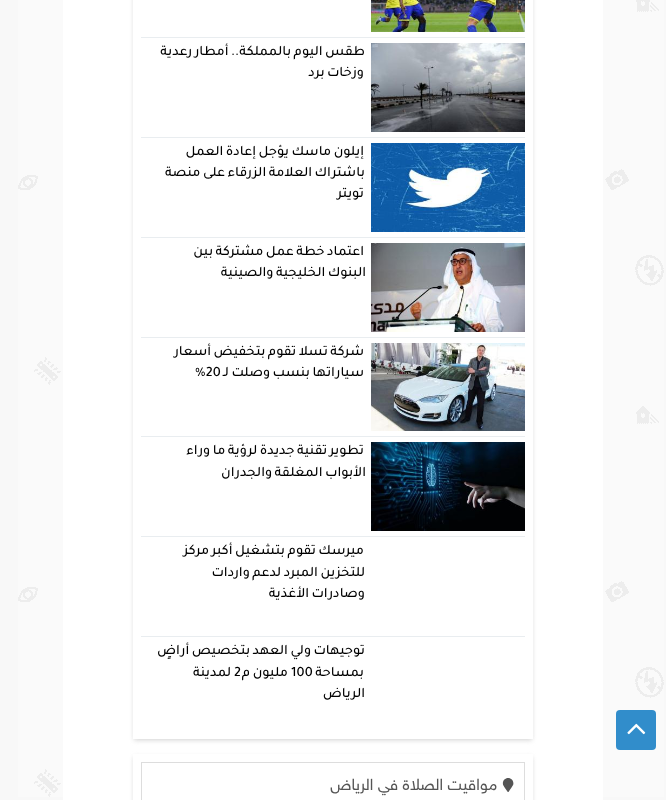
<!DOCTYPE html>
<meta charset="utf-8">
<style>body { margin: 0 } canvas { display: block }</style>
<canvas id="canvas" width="666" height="800"></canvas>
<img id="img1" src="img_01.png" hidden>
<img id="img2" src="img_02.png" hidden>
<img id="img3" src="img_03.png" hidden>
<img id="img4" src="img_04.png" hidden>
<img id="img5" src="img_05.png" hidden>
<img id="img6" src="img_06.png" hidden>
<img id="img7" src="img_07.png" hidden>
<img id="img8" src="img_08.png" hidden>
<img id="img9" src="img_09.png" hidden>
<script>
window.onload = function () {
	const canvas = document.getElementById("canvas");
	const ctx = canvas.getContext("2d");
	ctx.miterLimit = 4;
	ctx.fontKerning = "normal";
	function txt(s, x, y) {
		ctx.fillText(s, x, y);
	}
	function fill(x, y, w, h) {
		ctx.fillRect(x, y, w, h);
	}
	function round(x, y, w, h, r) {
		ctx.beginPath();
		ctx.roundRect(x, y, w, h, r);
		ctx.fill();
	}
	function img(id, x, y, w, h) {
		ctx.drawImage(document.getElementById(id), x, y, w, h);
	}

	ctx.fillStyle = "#F8F8F8";
	fill(0, 0, 666, 800);
	img("img1", 18, 0, 646, 797);
	ctx.fillStyle = "#FFFFFF";
	fill(63, 0, 540, 800);
	ctx.save();
	ctx.beginPath();
	ctx.moveTo(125, 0);
	ctx.lineTo(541, 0);
	ctx.lineTo(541, 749);
	ctx.lineTo(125, 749);
	ctx.closePath();
	ctx.moveTo(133, -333);
	ctx.lineTo(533, -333);
	ctx.lineTo(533, 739);
	ctx.lineTo(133, 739);
	ctx.closePath();
	ctx.clip("evenodd");
	ctx.fillStyle = "#D1D1D1";
	ctx.filter = "blur(2.5px)";
	ctx.beginPath();
	ctx.rect(134, -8, 398, 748);
	ctx.fill();
	ctx.filter = "none";
	ctx.restore();
	ctx.fillStyle = "#E9EDF0";
	fill(141, 37, 384, 1);
	img("img2", 371, 0, 154, 32);
	fill(141, 137, 384, 1);
	img("img3", 371, 43, 154, 89);
	fill(141, 237, 384, 1);
	img("img4", 371, 143, 154, 89);
	fill(141, 337, 384, 1);
	img("img5", 371, 243, 154, 89);
	fill(141, 436, 384, 1);
	img("img6", 371, 343, 154, 88);
	fill(141, 536, 384, 1);
	img("img7", 371, 442, 154, 89);
	fill(141, 636, 384, 1);
	ctx.save();
	ctx.beginPath();
	ctx.moveTo(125, 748);
	ctx.lineTo(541, 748);
	ctx.lineTo(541, 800);
	ctx.lineTo(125, 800);
	ctx.closePath();
	ctx.moveTo(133, 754);
	ctx.lineTo(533, 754);
	ctx.lineTo(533, 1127);
	ctx.lineTo(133, 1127);
	ctx.closePath();
	ctx.clip("evenodd");
	ctx.fillStyle = "#D1D1D1";
	ctx.filter = "blur(2.5px)";
	ctx.beginPath();
	ctx.rect(134, 757, 398, 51);
	ctx.fill();
	ctx.filter = "none";
	ctx.restore();
	ctx.strokeStyle = "#DDDDDD";
	ctx.strokeRect(141.5, 762.5, 383, 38);
	img("img8", 142, 763, 382, 37);
	ctx.fillStyle = "#318DCB";
	round(616, 710, 40, 40, 4);
	img("img9", 627, 723, 19, 12);
	ctx.letterSpacing = "0.15px";
	ctx.wordSpacing = "-1px";
	ctx.direction = "rtl";
	ctx.font = "500 14.25px Tajawal";
	ctx.fillStyle = "#000000";
	txt("طقس اليوم بالمملكة.. أمطار رعدية", 365, 55);
	txt("وزخات برد", 364, 76);
	txt("إيلون ماسك يؤجل إعادة العمل", 364, 155);
	txt("باشتراك العلامة الزرقاء على منصة", 365, 176);
	ctx.wordSpacing = "0px";
	txt("تويتر", 364, 197);
	ctx.wordSpacing = "-1px";
	txt("اعتماد خطة عمل مشتركة بين", 364, 255);
	txt("البنوك الخليجية والصينية", 366, 276);
	txt("شركة تسلا تقوم بتخفيض أسعار", 364, 355);
	ctx.wordSpacing = "0px";
	ctx.direction = "ltr";
	txt("%20", 195, 376);
	ctx.wordSpacing = "-1px";
	ctx.direction = "rtl";
	txt("سياراتها بنسب وصلت لـ", 364, 376);
	txt("تطوير تقنية جديدة لرؤية ما وراء", 364, 454);
	txt("الأبواب المغلقة والجدران", 366, 476);
	txt("ميرسك تقوم بتشغيل أكبر مركز", 364, 554);
	txt("للتخزين المبرد لدعم واردات", 365, 576);
	txt("وصادرات الأغذية", 365, 597);
	txt("توجيهات ولي العهد بتخصيص أراضٍ", 365, 654);
	ctx.wordSpacing = "0px";
	txt("بمساحة", 364, 676);
	ctx.direction = "ltr";
	txt("100", 291, 676);
	ctx.wordSpacing = "-1px";
	ctx.direction = "rtl";
	txt("مليون م", 288, 676);
	ctx.wordSpacing = "0px";
	ctx.direction = "ltr";
	txt("2", 234, 676);
	ctx.direction = "rtl";
	txt("لمدينة", 231, 676);
	txt("الرياض", 365, 697);
};
</script>
